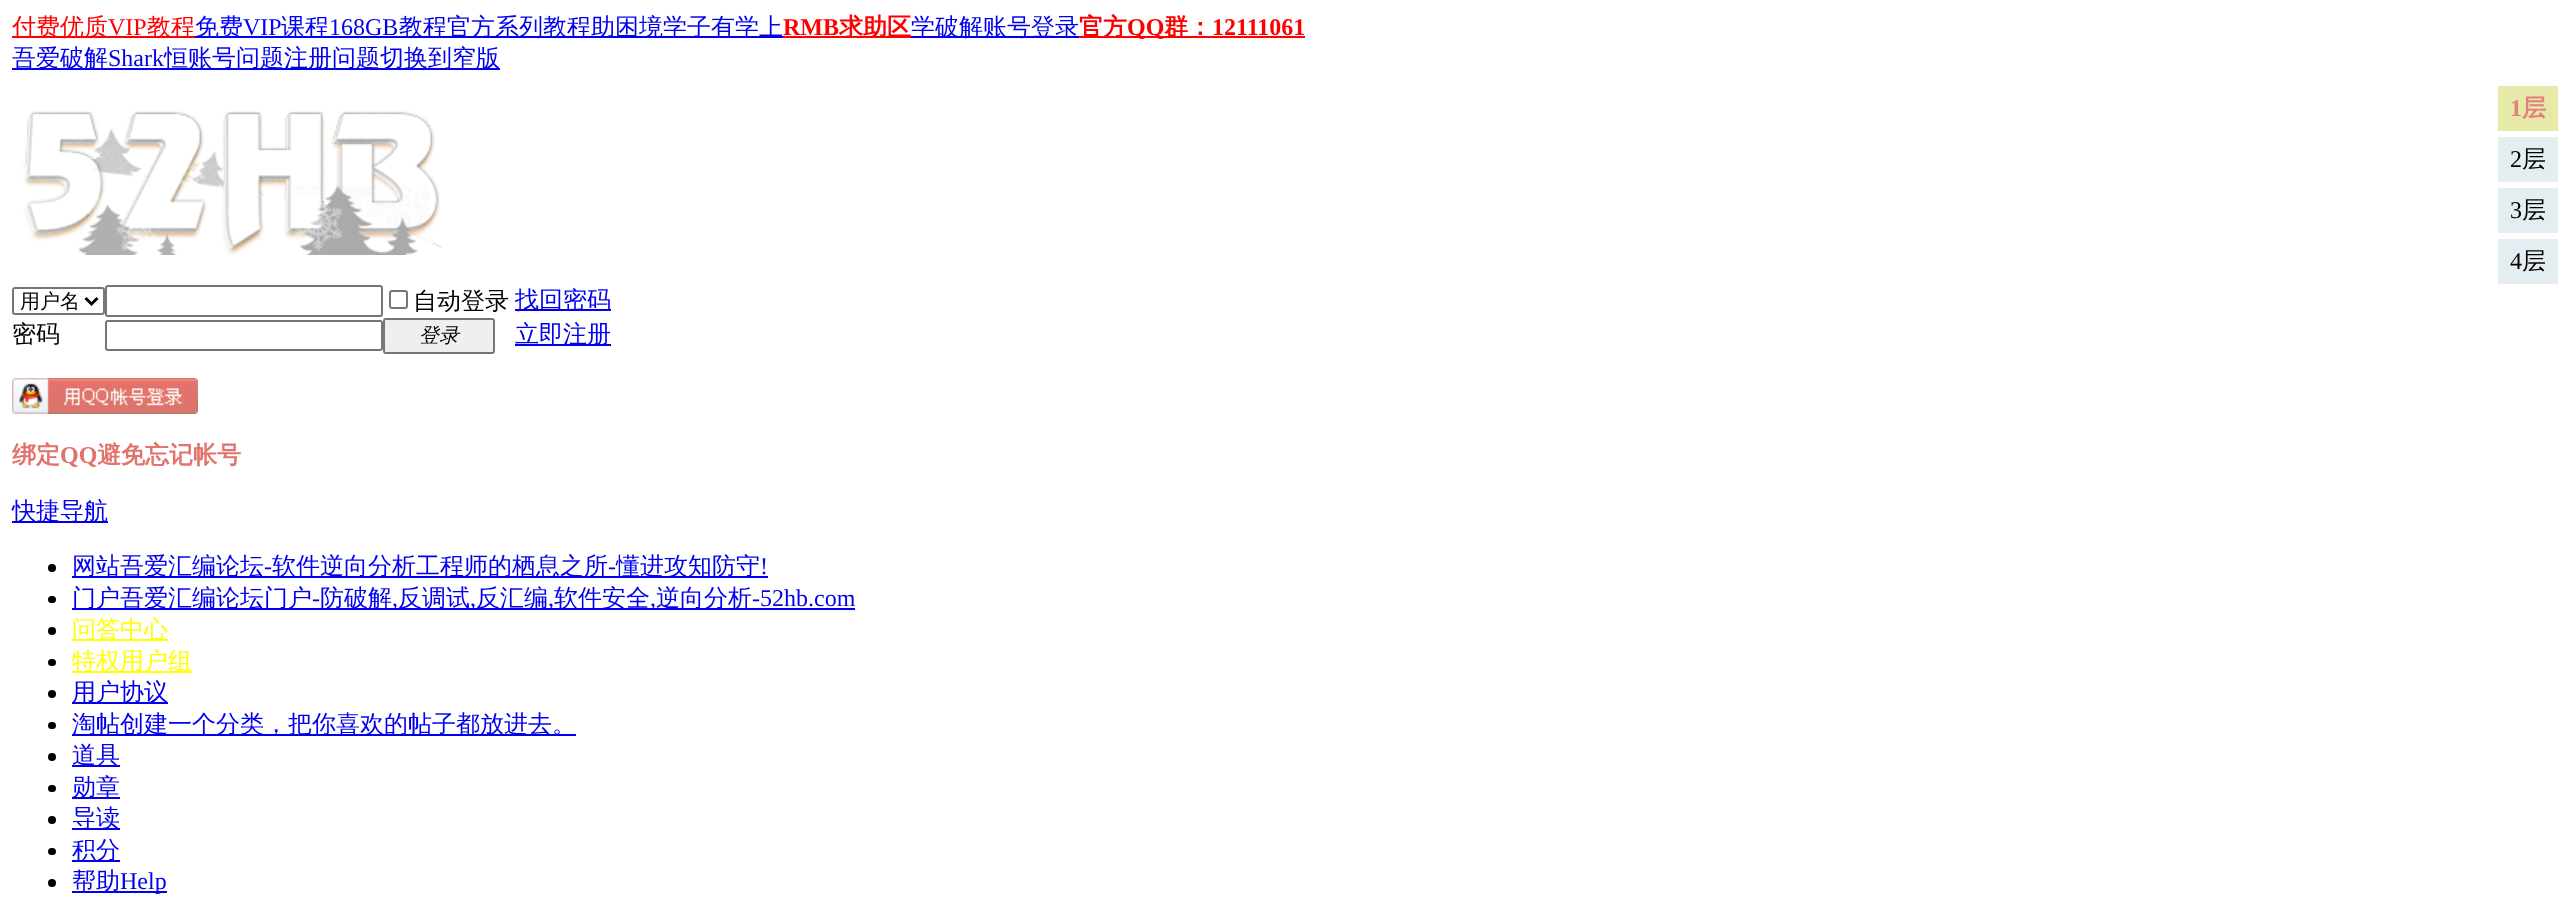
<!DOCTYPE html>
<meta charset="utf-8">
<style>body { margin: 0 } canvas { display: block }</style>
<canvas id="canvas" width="2567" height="911"></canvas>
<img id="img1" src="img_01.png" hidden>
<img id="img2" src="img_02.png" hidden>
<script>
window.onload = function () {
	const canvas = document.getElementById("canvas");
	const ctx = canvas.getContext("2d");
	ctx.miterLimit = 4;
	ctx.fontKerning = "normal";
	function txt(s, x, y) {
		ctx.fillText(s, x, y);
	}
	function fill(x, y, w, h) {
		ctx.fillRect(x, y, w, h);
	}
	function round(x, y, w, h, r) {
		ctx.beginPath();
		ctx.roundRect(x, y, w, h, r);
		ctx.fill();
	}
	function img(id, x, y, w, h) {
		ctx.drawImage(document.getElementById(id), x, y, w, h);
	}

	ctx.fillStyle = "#FFFFFF";
	fill(0, 0, 2567, 911);
	ctx.fillStyle = "#FF0000";
	fill(12, 36, 183, 2);
	ctx.fillStyle = "#0000FF";
	fill(195, 36, 135, 2);
	ctx.fillStyle = "#0000EE";
	fill(330, 36, 453, 2);
	ctx.fillStyle = "#FF0000";
	fill(783, 36, 128, 2);
	ctx.fillStyle = "#0000EE";
	fill(911, 36, 168, 2);
	ctx.fillStyle = "#FF0000";
	fill(1079, 36, 226, 2);
	ctx.fillStyle = "#0000EE";
	fill(12, 68, 488, 2);
	ctx.fillStyle = "#E7E9A9";
	fill(2498, 86, 60, 45);
	ctx.fillStyle = "#E4EDF2";
	fill(2498, 137, 60, 45);
	fill(2498, 188, 60, 45);
	fill(2498, 239, 60, 45);
	img("img1", 21, 111, 421, 144);
	ctx.beginPath();
	ctx.roundRect(13, 288, 91, 26, 2);
	ctx.strokeStyle = "#767676";
	ctx.lineWidth = 2;
	ctx.stroke();
	ctx.beginPath();
	ctx.moveTo(85.5, 298);
	ctx.lineTo(91.5, 304);
	ctx.lineTo(97.5, 298);
	ctx.strokeStyle = "#000000";
	ctx.lineWidth = 3;
	ctx.stroke();
	ctx.beginPath();
	ctx.roundRect(106, 286, 276, 30, 2);
	ctx.strokeStyle = "#767676";
	ctx.lineWidth = 2;
	ctx.stroke();
	ctx.beginPath();
	ctx.roundRect(390, 291, 17, 17, 2);
	ctx.stroke();
	ctx.fillStyle = "#0000EE";
	fill(515, 309, 96, 2);
	ctx.beginPath();
	ctx.roundRect(106, 321, 276, 29, 2);
	ctx.stroke();
	ctx.fillStyle = "#EFEFEF";
	ctx.beginPath();
	ctx.roundRect(384, 319, 110, 34, 2);
	ctx.fill();
	ctx.stroke();
	ctx.fillStyle = "#0000EE";
	fill(515, 344, 96, 2);
	img("img2", 12, 378, 186, 36);
	fill(12, 521, 96, 2);
	ctx.fillStyle = "#000000";
	ctx.beginPath();
	ctx.arc(52, 568, 4, 0, Math.PI * 2);
	ctx.fill();
	ctx.fillStyle = "#0000EE";
	fill(72, 576, 696, 2);
	ctx.fillStyle = "#000000";
	round(48, 596, 8, 7, 3.5);
	ctx.fillStyle = "#0000EE";
	fill(72, 608, 783, 2);
	ctx.fillStyle = "#000000";
	ctx.beginPath();
	ctx.arc(52, 631, 4, 0, Math.PI * 2);
	ctx.fill();
	ctx.fillStyle = "#FFFF00";
	fill(72, 639, 96, 2);
	ctx.fillStyle = "#000000";
	round(48, 659, 8, 7, 3.5);
	ctx.fillStyle = "#FFFF00";
	fill(72, 671, 120, 2);
	ctx.fillStyle = "#000000";
	ctx.beginPath();
	ctx.arc(52, 694, 4, 0, Math.PI * 2);
	ctx.fill();
	ctx.fillStyle = "#0000EE";
	fill(72, 702, 96, 2);
	ctx.fillStyle = "#000000";
	round(48, 722, 8, 7, 3.5);
	ctx.fillStyle = "#0000EE";
	fill(72, 734, 504, 2);
	ctx.fillStyle = "#000000";
	ctx.beginPath();
	ctx.arc(52, 757, 4, 0, Math.PI * 2);
	ctx.fill();
	ctx.fillStyle = "#0000EE";
	fill(72, 765, 48, 2);
	ctx.fillStyle = "#000000";
	round(48, 785, 8, 7, 3.5);
	ctx.fillStyle = "#0000EE";
	fill(72, 797, 48, 2);
	ctx.fillStyle = "#000000";
	ctx.beginPath();
	ctx.arc(52, 820, 4, 0, Math.PI * 2);
	ctx.fill();
	ctx.fillStyle = "#0000EE";
	fill(72, 828, 48, 2);
	ctx.fillStyle = "#000000";
	round(48, 848, 8, 7, 3.5);
	ctx.fillStyle = "#0000EE";
	fill(72, 860, 48, 2);
	ctx.fillStyle = "#000000";
	ctx.beginPath();
	ctx.arc(52, 883, 4, 0, Math.PI * 2);
	ctx.fill();
	ctx.fillStyle = "#0000EE";
	fill(72, 891, 95, 2);
	ctx.font = "500 24px WenQuanYi Zen Hei";
	ctx.fillStyle = "#FF0000";
	txt("付费优质", 12, 35);
	ctx.font = "24px Liberation Serif";
	txt("VIP", 108, 35);
	ctx.font = "500 24px WenQuanYi Zen Hei";
	txt("教程", 147, 35);
	ctx.fillStyle = "#0000FF";
	txt("免费", 195, 35);
	ctx.font = "24px Liberation Serif";
	txt("VIP", 243, 35);
	ctx.font = "500 24px WenQuanYi Zen Hei";
	txt("课程", 281, 35);
	ctx.font = "24px Liberation Serif";
	ctx.fillStyle = "#0000EE";
	txt("168GB", 329, 35);
	ctx.font = "500 24px WenQuanYi Zen Hei";
	txt("教程官方系列教程助困境学子有学上", 399, 35);
	ctx.font = "bold 24px Liberation Serif";
	ctx.fillStyle = "#FF0000";
	txt("RMB", 783, 35);
	ctx.font = "bold 24px WenQuanYi Zen Hei";
	txt("求助区", 839, 35);
	ctx.font = "500 24px WenQuanYi Zen Hei";
	ctx.fillStyle = "#0000EE";
	txt("学破解账号登录", 911, 35);
	ctx.font = "bold 24px WenQuanYi Zen Hei";
	ctx.fillStyle = "#FF0000";
	txt("官方", 1079, 35);
	ctx.font = "bold 24px Liberation Serif";
	txt("QQ", 1127, 35);
	ctx.font = "bold 24px WenQuanYi Zen Hei";
	txt("群：", 1164, 35);
	ctx.font = "bold 24px Liberation Serif";
	txt("12111061", 1212, 35);
	ctx.font = "500 24px WenQuanYi Zen Hei";
	ctx.fillStyle = "#0000EE";
	txt("吾爱破解", 12, 66);
	ctx.font = "24px Liberation Serif";
	txt("Shark", 108, 66);
	ctx.font = "500 24px WenQuanYi Zen Hei";
	txt("恒账号问题注册问题切换到窄版", 164, 66);
	ctx.font = "bold 24px Liberation Serif";
	ctx.fillStyle = "#E57F7F";
	txt("1", 2510, 116);
	ctx.font = "bold 24px WenQuanYi Zen Hei";
	txt("层", 2522, 116);
	ctx.font = "24px Liberation Serif";
	ctx.fillStyle = "#000000";
	txt("2", 2510, 167);
	ctx.font = "500 24px WenQuanYi Zen Hei";
	txt("层", 2522, 167);
	ctx.font = "24px Liberation Serif";
	txt("3", 2510, 218);
	ctx.font = "500 24px WenQuanYi Zen Hei";
	txt("层", 2522, 218);
	ctx.font = "24px Liberation Serif";
	txt("4", 2510, 269);
	ctx.font = "500 24px WenQuanYi Zen Hei";
	txt("层", 2522, 269);
	ctx.font = "500 20px WenQuanYi Zen Hei";
	txt("用户名", 20, 308);
	ctx.font = "500 24px WenQuanYi Zen Hei";
	txt("自动登录", 413, 309);
	ctx.fillStyle = "#0000EE";
	txt("找回密码", 515, 308);
	ctx.fillStyle = "#000000";
	txt("密码", 12, 342);
	ctx.font = "italic 500 20px WenQuanYi Zen Hei";
	txt("登录", 419, 342);
	ctx.font = "500 24px WenQuanYi Zen Hei";
	ctx.fillStyle = "#0000EE";
	txt("立即注册", 515, 342);
	ctx.font = "bold 24px WenQuanYi Zen Hei";
	ctx.fillStyle = "#E1736C";
	txt("绑定", 12, 463);
	ctx.font = "bold 24px Liberation Serif";
	txt("QQ", 60, 463);
	ctx.font = "bold 24px WenQuanYi Zen Hei";
	txt("避免忘记帐号", 97, 463);
	ctx.font = "500 24px WenQuanYi Zen Hei";
	ctx.fillStyle = "#0000EE";
	txt("快捷导航", 12, 519);
	txt("网站吾爱汇编论坛", 72, 574);
	ctx.font = "24px Liberation Serif";
	txt("-", 264, 574);
	ctx.font = "500 24px WenQuanYi Zen Hei";
	txt("软件逆向分析工程师的栖息之所", 272, 574);
	ctx.font = "24px Liberation Serif";
	txt("-", 608, 574);
	ctx.font = "500 24px WenQuanYi Zen Hei";
	txt("懂进攻知防守", 616, 574);
	ctx.font = "24px Liberation Serif";
	txt("!", 760, 574);
	ctx.font = "500 24px WenQuanYi Zen Hei";
	txt("门户吾爱汇编论坛门户", 72, 606);
	ctx.font = "24px Liberation Serif";
	txt("-", 312, 606);
	ctx.font = "500 24px WenQuanYi Zen Hei";
	txt("防破解", 320, 606);
	txt("反调试", 398, 606);
	txt("反汇编", 476, 606);
	txt("软件安全", 554, 606);
	txt("逆向分析", 656, 606);
	ctx.font = "24px Liberation Serif";
	txt("-52hb.com", 752, 606);
	txt(",", 392, 606);
	txt(",", 470, 606);
	txt(",", 548, 606);
	txt(",", 650, 606);
	ctx.font = "500 24px WenQuanYi Zen Hei";
	ctx.fillStyle = "#FFFF00";
	txt("问答中心", 72, 637);
	txt("特权用户组", 72, 669);
	ctx.fillStyle = "#0000EE";
	txt("用户协议", 72, 700);
	txt("淘帖创建一个分类，把你喜欢的帖子都放进去。", 72, 732);
	txt("道具", 72, 763);
	txt("勋章", 72, 795);
	txt("导读", 72, 826);
	txt("积分", 72, 858);
	txt("帮助", 72, 889);
	ctx.font = "24px Liberation Serif";
	txt("Help", 120, 889);
};
</script>
